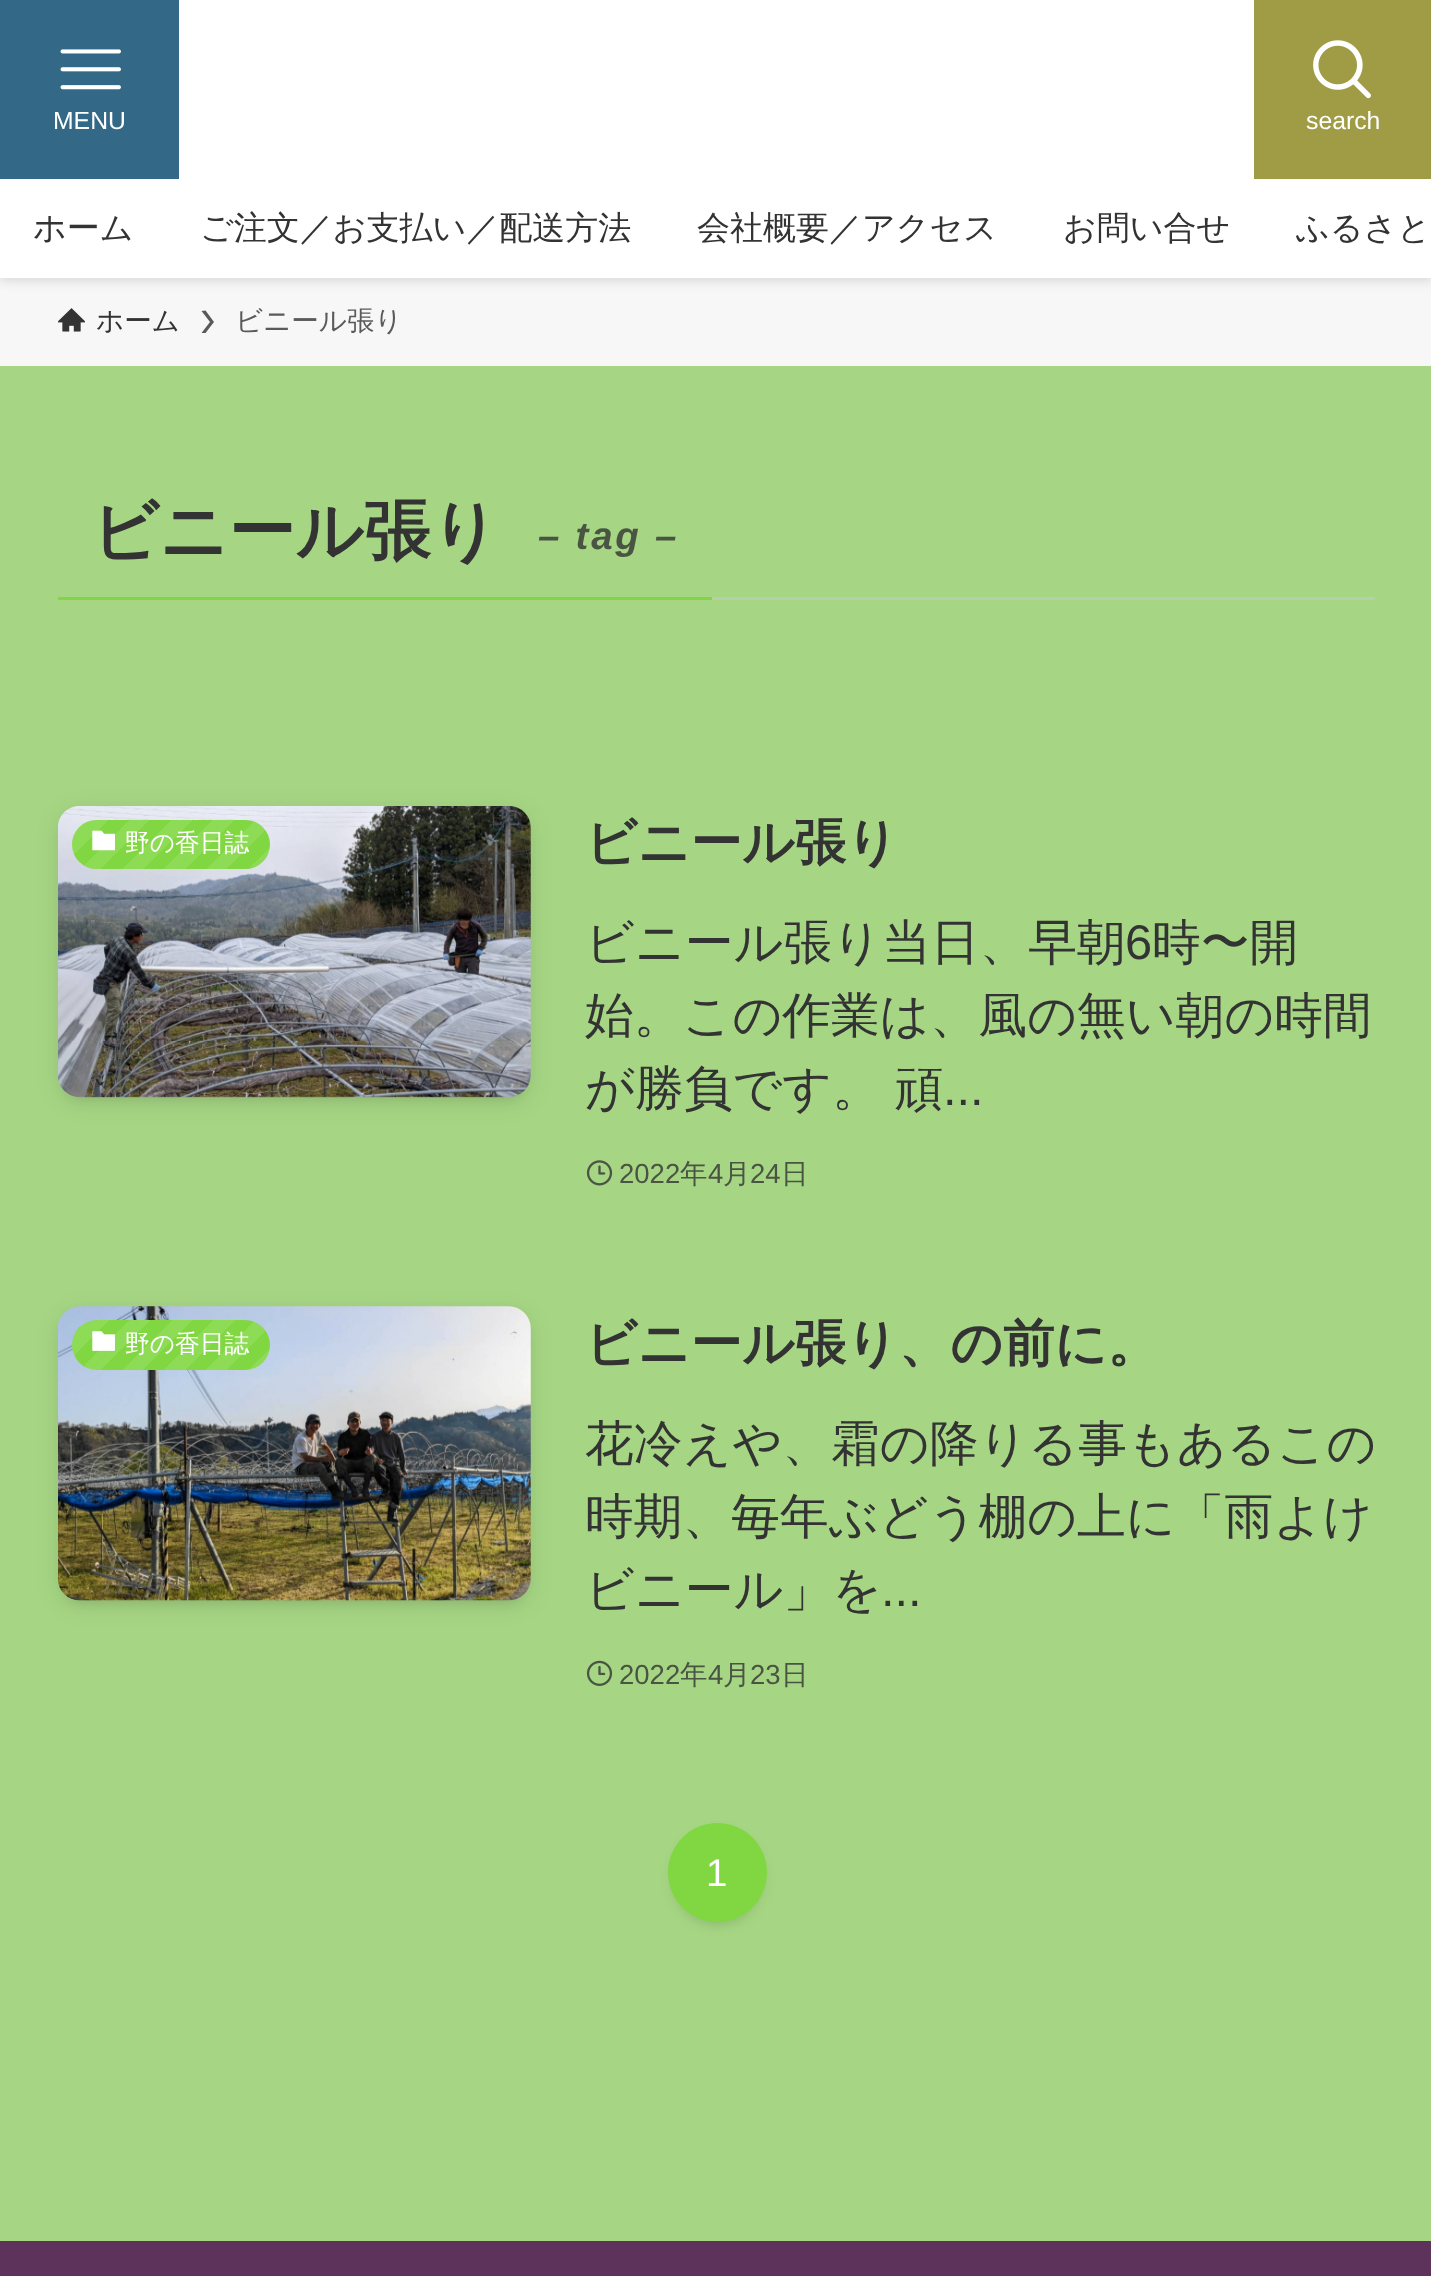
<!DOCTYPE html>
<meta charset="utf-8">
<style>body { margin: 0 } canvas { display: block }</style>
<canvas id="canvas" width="1431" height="2276"></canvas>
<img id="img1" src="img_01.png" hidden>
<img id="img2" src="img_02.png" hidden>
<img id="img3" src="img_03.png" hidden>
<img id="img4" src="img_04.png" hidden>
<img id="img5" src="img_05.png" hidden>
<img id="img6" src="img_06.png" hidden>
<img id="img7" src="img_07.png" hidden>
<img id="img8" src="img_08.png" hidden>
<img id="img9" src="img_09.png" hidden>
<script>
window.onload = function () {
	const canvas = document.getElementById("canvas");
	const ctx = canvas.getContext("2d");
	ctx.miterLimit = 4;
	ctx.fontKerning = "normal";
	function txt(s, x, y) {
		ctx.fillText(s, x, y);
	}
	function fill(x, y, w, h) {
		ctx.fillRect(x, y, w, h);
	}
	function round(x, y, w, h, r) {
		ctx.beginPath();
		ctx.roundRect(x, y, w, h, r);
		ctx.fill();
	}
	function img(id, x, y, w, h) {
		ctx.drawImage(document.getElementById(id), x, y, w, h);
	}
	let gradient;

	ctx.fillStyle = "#A6D684";
	fill(0, 0, 1431, 2276);
	ctx.fillStyle = "#F7F7F7";
	fill(0, 278, 1431, 88);
	ctx.fillStyle = "rgba(0, 0, 0, 0.12)";
	ctx.filter = "blur(5.5px)";
	ctx.beginPath();
	ctx.rect(0, 3, 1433, 278);
	ctx.fill();
	ctx.filter = "none";
	ctx.fillStyle = "#FFFFFF";
	fill(0, 0, 1431, 278);
	ctx.fillStyle = "#336887";
	fill(0, 0, 179, 179);
	img("img1", 60, 49, 61, 41);
	ctx.fillStyle = "#A09C45";
	fill(1254, 0, 177, 179);
	img("img2", 1313, 40, 58, 59);
	img("img3", 58, 308, 27, 24);
	ctx.fillStyle = "#5A5A5A";
	ctx.beginPath();
	ctx.moveTo(205.5, 310.5);
	ctx.lineTo(201.5, 311);
	ctx.lineTo(210, 322);
	ctx.lineTo(201.5, 333);
	ctx.lineTo(205.5, 333);
	ctx.lineTo(214, 322);
	ctx.closePath();
	ctx.fill();
	ctx.fillStyle = "#B7CFA6";
	fill(712, 597, 663, 3);
	ctx.fillStyle = "#81D742";
	fill(58, 597, 654, 3);
	ctx.fillStyle = "rgba(0, 0, 0, 0.1)";
	ctx.filter = "blur(5.5px)";
	ctx.beginPath();
	ctx.roundRect(69, 828, 451, 269, 11);
	ctx.fill();
	ctx.filter = "none";
	ctx.filter = "blur(11px)";
	ctx.beginPath();
	ctx.roundRect(58, 811, 473, 292, 22);
	ctx.fill();
	ctx.filter = "none";
	img("img4", 58, 806, 473, 292);
	ctx.fillStyle = "#81D742";
	round(72, 820, 198, 49, 24.5);
	gradient = ctx.createLinearGradient(232, 906, 106, 780);
	gradient.addColorStop(0, "rgba(255, 255, 255, 0.1)");
	gradient.addColorStop(0.08, "rgba(255, 255, 255, 0.1)");
	gradient.addColorStop(0.08, "rgba(255, 255, 255, 0)");
	gradient.addColorStop(0.17, "rgba(255, 255, 255, 0)");
	gradient.addColorStop(0.17, "rgba(255, 255, 255, 0.1)");
	gradient.addColorStop(0.25, "rgba(255, 255, 255, 0.1)");
	gradient.addColorStop(0.25, "rgba(255, 255, 255, 0)");
	gradient.addColorStop(0.33, "rgba(255, 255, 255, 0)");
	gradient.addColorStop(0.33, "rgba(255, 255, 255, 0.1)");
	gradient.addColorStop(0.42, "rgba(255, 255, 255, 0.1)");
	gradient.addColorStop(0.42, "rgba(255, 255, 255, 0)");
	gradient.addColorStop(0.5, "rgba(255, 255, 255, 0)");
	gradient.addColorStop(0.5, "rgba(255, 255, 255, 0.1)");
	gradient.addColorStop(0.58, "rgba(255, 255, 255, 0.1)");
	gradient.addColorStop(0.58, "rgba(255, 255, 255, 0)");
	gradient.addColorStop(0.67, "rgba(255, 255, 255, 0)");
	gradient.addColorStop(0.67, "rgba(255, 255, 255, 0.1)");
	gradient.addColorStop(0.75, "rgba(255, 255, 255, 0.1)");
	gradient.addColorStop(0.75, "rgba(255, 255, 255, 0)");
	gradient.addColorStop(0.83, "rgba(255, 255, 255, 0)");
	gradient.addColorStop(0.83, "rgba(255, 255, 255, 0.1)");
	gradient.addColorStop(0.92, "rgba(255, 255, 255, 0.1)");
	gradient.addColorStop(0.92, "rgba(255, 255, 255, 0)");
	gradient.addColorStop(1, "rgba(0, 0, 0, 0)");
	ctx.fillStyle = gradient;
	round(72, 820, 198, 49, 24.5);
	img("img5", 92, 830, 23, 21);
	img("img6", 586, 1160, 27, 26);
	ctx.fillStyle = "rgba(0, 0, 0, 0.1)";
	ctx.filter = "blur(5.5px)";
	ctx.beginPath();
	ctx.roundRect(69, 1328, 451, 273, 11);
	ctx.fill();
	ctx.filter = "none";
	ctx.filter = "blur(11px)";
	ctx.beginPath();
	ctx.roundRect(58, 1312, 473, 294, 22);
	ctx.fill();
	ctx.filter = "none";
	img("img7", 58, 1306, 473, 295);
	ctx.fillStyle = "#81D742";
	round(72, 1320, 198, 50, 25);
	gradient = ctx.createLinearGradient(232, 1407, 106, 1281);
	gradient.addColorStop(0, "rgba(255, 255, 255, 0.1)");
	gradient.addColorStop(0.08, "rgba(255, 255, 255, 0.1)");
	gradient.addColorStop(0.08, "rgba(255, 255, 255, 0)");
	gradient.addColorStop(0.17, "rgba(255, 255, 255, 0)");
	gradient.addColorStop(0.17, "rgba(255, 255, 255, 0.1)");
	gradient.addColorStop(0.25, "rgba(255, 255, 255, 0.1)");
	gradient.addColorStop(0.25, "rgba(255, 255, 255, 0)");
	gradient.addColorStop(0.33, "rgba(255, 255, 255, 0)");
	gradient.addColorStop(0.33, "rgba(255, 255, 255, 0.1)");
	gradient.addColorStop(0.42, "rgba(255, 255, 255, 0.1)");
	gradient.addColorStop(0.42, "rgba(255, 255, 255, 0)");
	gradient.addColorStop(0.5, "rgba(255, 255, 255, 0)");
	gradient.addColorStop(0.5, "rgba(255, 255, 255, 0.1)");
	gradient.addColorStop(0.58, "rgba(255, 255, 255, 0.1)");
	gradient.addColorStop(0.58, "rgba(255, 255, 255, 0)");
	gradient.addColorStop(0.67, "rgba(255, 255, 255, 0)");
	gradient.addColorStop(0.67, "rgba(255, 255, 255, 0.1)");
	gradient.addColorStop(0.75, "rgba(255, 255, 255, 0.1)");
	gradient.addColorStop(0.75, "rgba(255, 255, 255, 0)");
	gradient.addColorStop(0.83, "rgba(255, 255, 255, 0)");
	gradient.addColorStop(0.83, "rgba(255, 255, 255, 0.1)");
	gradient.addColorStop(0.92, "rgba(255, 255, 255, 0.1)");
	gradient.addColorStop(0.92, "rgba(255, 255, 255, 0)");
	gradient.addColorStop(1, "rgba(0, 0, 0, 0)");
	ctx.fillStyle = gradient;
	round(72, 1320, 198, 50, 25);
	img("img8", 92, 1331, 23, 20);
	img("img9", 586, 1660, 27, 26);
	ctx.fillStyle = "rgba(0, 0, 0, 0.1)";
	ctx.filter = "blur(5.5px)";
	ctx.beginPath();
	ctx.roundRect(679, 1845, 77, 77, 38.5);
	ctx.fill();
	ctx.filter = "none";
	ctx.fillStyle = "rgba(0, 0, 0, 0.05)";
	ctx.filter = "blur(5.5px)";
	ctx.beginPath();
	ctx.roundRect(668, 1829, 99, 99, 49.5);
	ctx.fill();
	ctx.filter = "none";
	ctx.fillStyle = "#81D742";
	ctx.beginPath();
	ctx.arc(717.5, 1872.5, 49.5, 0, Math.PI * 2);
	ctx.fill();
	ctx.fillStyle = "#5E335B";
	fill(0, 2241, 1431, 35);
	ctx.font = "24.75px Liberation Sans";
	ctx.fillStyle = "#FFFFFF";
	txt("MENU", 53, 129);
	txt("search", 1306, 129);
	ctx.font = "500 33px WenQuanYi Zen Hei";
	ctx.fillStyle = "#333333";
	txt("ホーム", 33, 239);
	txt("ご注文／お支払い／配送方法", 200, 239);
	txt("会社概要／アクセス", 697, 239);
	txt("お問い合せ", 1063, 239);
	txt("ふるさと", 1296, 239);
	ctx.font = "500 27.5px WenQuanYi Zen Hei";
	txt("ホーム", 96, 330);
	ctx.fillStyle = "#5A5A5A";
	txt("ビニール張り", 235, 330);
	ctx.font = "bold 67px WenQuanYi Zen Hei";
	ctx.fillStyle = "#333333";
	txt("ビニール張り", 91, 554);
	ctx.letterSpacing = "2.75px";
	ctx.font = "italic bold 38.5px Liberation Sans";
	ctx.fillStyle = "#4A5443";
	txt("– tag –", 538, 549);
	ctx.letterSpacing = "0px";
	ctx.font = "500 24.75px WenQuanYi Zen Hei";
	ctx.fillStyle = "#FFFFFF";
	txt("野の香日誌", 125, 851);
	ctx.font = "bold 51.5px WenQuanYi Zen Hei";
	ctx.fillStyle = "#333333";
	txt("ビニール張り", 585, 860);
	ctx.font = "500 48.75px WenQuanYi Zen Hei";
	txt("ビニール張り当日、早朝", 585, 959);
	ctx.font = "48.75px Liberation Sans";
	txt("6", 1125, 959);
	ctx.font = "500 48.75px WenQuanYi Zen Hei";
	txt("時〜開", 1152, 959);
	txt("始。この作業は、風の無い朝の時間", 585, 1032);
	ctx.wordSpacing = "-1px";
	txt("が勝負です。 頑", 585, 1105);
	ctx.wordSpacing = "0px";
	ctx.font = "48.75px Liberation Sans";
	txt("...", 943, 1105);
	ctx.font = "27.5px Liberation Sans";
	ctx.fillStyle = "#4A5443";
	txt("2022", 619, 1183);
	ctx.font = "500 27.5px WenQuanYi Zen Hei";
	txt("年", 680, 1183);
	ctx.font = "27.5px Liberation Sans";
	txt("4", 708, 1183);
	ctx.font = "500 27.5px WenQuanYi Zen Hei";
	txt("月", 723, 1183);
	ctx.font = "27.5px Liberation Sans";
	txt("24", 750, 1183);
	ctx.font = "500 27.5px WenQuanYi Zen Hei";
	txt("日", 781, 1183);
	ctx.font = "500 24.75px WenQuanYi Zen Hei";
	ctx.fillStyle = "#FFFFFF";
	txt("野の香日誌", 125, 1352);
	ctx.font = "bold 51.5px WenQuanYi Zen Hei";
	ctx.fillStyle = "#333333";
	txt("ビニール張り、の前に。", 585, 1361);
	ctx.font = "500 48.75px WenQuanYi Zen Hei";
	txt("花冷えや、霜の降りる事もあるこの", 585, 1460);
	txt("時期、毎年ぶどう棚の上に「雨よけ", 585, 1533);
	txt("ビニール」を", 585, 1606);
	ctx.font = "48.75px Liberation Sans";
	txt("...", 881, 1606);
	ctx.font = "27.5px Liberation Sans";
	ctx.fillStyle = "#4A5443";
	txt("2022", 619, 1684);
	ctx.font = "500 27.5px WenQuanYi Zen Hei";
	txt("年", 680, 1684);
	ctx.font = "27.5px Liberation Sans";
	txt("4", 708, 1684);
	ctx.font = "500 27.5px WenQuanYi Zen Hei";
	txt("月", 723, 1684);
	ctx.font = "27.5px Liberation Sans";
	txt("23", 750, 1684);
	ctx.font = "500 27.5px WenQuanYi Zen Hei";
	txt("日", 781, 1684);
	ctx.font = "38.5px Liberation Sans";
	ctx.fillStyle = "#FFFFFF";
	txt("1", 706, 1886);
};
</script>
